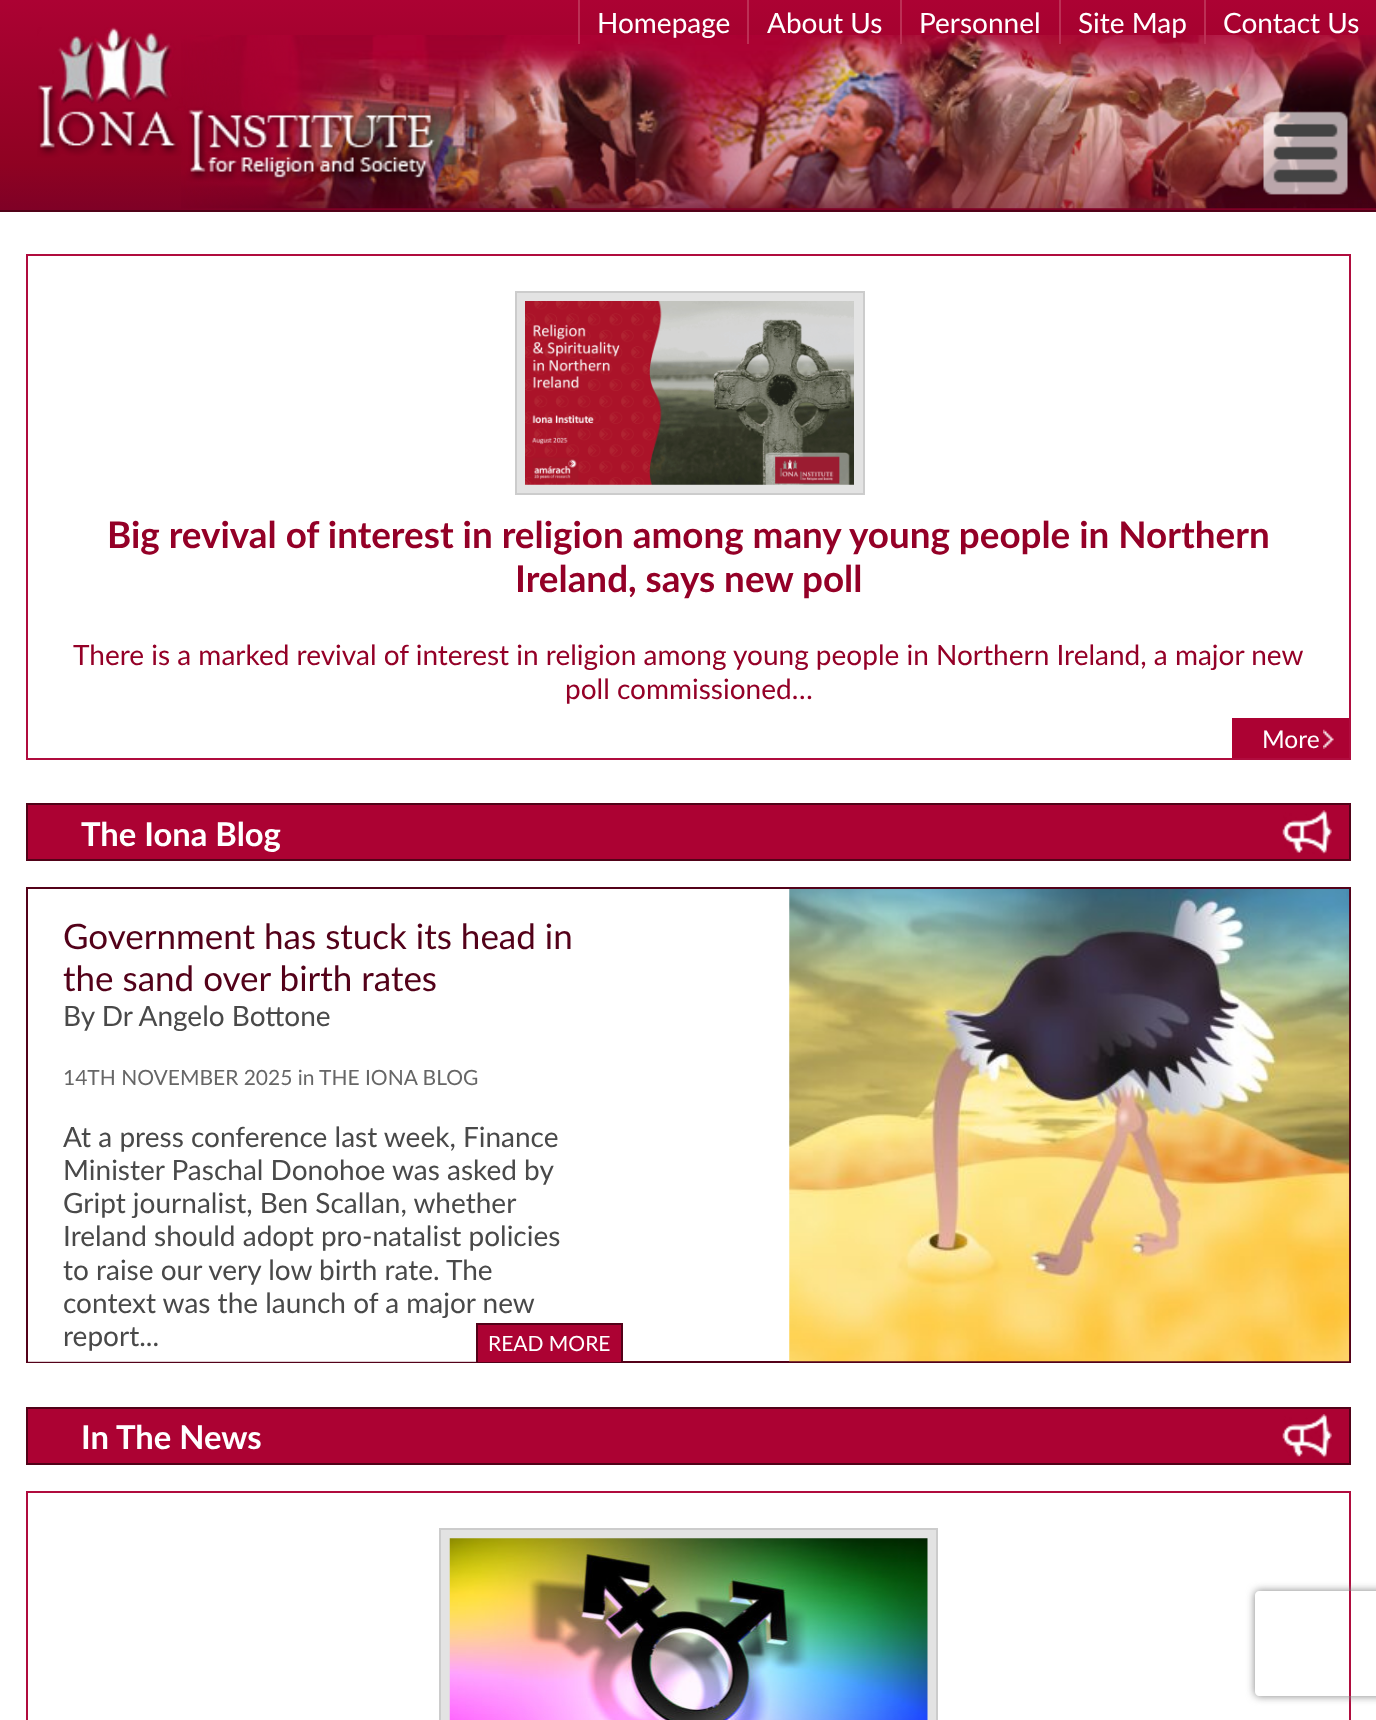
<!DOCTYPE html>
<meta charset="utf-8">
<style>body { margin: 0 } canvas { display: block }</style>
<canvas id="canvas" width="1376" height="1720"></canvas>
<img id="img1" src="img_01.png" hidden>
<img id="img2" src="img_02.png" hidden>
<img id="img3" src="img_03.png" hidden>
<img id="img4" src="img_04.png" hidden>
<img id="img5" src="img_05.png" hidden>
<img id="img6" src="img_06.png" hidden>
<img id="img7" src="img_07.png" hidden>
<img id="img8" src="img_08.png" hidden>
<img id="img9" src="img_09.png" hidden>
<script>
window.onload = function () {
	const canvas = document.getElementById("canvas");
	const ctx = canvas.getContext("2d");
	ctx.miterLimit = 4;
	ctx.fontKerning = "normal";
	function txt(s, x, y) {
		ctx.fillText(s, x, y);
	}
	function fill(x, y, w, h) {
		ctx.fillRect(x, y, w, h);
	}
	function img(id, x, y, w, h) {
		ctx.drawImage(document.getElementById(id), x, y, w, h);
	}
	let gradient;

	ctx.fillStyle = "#FFFFFF";
	fill(0, 0, 1376, 1720);
	gradient = ctx.createLinearGradient(689, 0, 689, 210);
	gradient.addColorStop(0, "#AC0233");
	gradient.addColorStop(0.78, "#8F0222");
	gradient.addColorStop(1, "#7F0126");
	ctx.fillStyle = gradient;
	fill(0, 0, 1376, 210);
	ctx.fillStyle = "#510218";
	fill(0, 210, 1376, 2);
	img("img1", 181, 35, 1195, 174);
	img("img2", 37, 27, 402, 159);
	ctx.fillStyle = "#BC3055";
	fill(578, 0, 2, 44);
	fill(747, 0, 2, 44);
	fill(900, 0, 2, 44);
	fill(1059, 0, 2, 44);
	fill(1204, 0, 2, 44);
	img("img3", 1263, 111, 85, 84);
	ctx.strokeStyle = "#B00C3E";
	ctx.lineWidth = 2;
	ctx.strokeRect(27, 255, 1323, 504);
	ctx.fillStyle = "#E3E3E3";
	ctx.beginPath();
	ctx.rect(516, 292, 348, 202);
	ctx.fill();
	ctx.strokeStyle = "#CCCCCC";
	ctx.stroke();
	img("img4", 525, 301, 329, 184);
	ctx.fillStyle = "#AC0233";
	fill(1232, 718, 117, 40);
	img("img5", 1323, 729, 11, 20);
	fill(28, 805, 1321, 54);
	img("img6", 1282, 810, 50, 44);
	ctx.strokeStyle = "#510218";
	ctx.strokeRect(27, 804, 1323, 56);
	ctx.strokeStyle = "#530119";
	ctx.strokeRect(27, 888, 1323, 474);
	ctx.fillStyle = "rgba(255, 255, 255, 0.8)";
	fill(28, 1361, 595, 1);
	ctx.fillStyle = "#AC0233";
	fill(478, 1325, 143, 37);
	ctx.fillStyle = "#530119";
	fill(476, 1323, 147, 2);
	fill(621, 1323, 2, 39);
	fill(476, 1323, 2, 39);
	img("img7", 789, 889, 561, 473);
	ctx.fillStyle = "#AC0233";
	fill(28, 1409, 1321, 54);
	img("img8", 1282, 1414, 50, 44);
	ctx.strokeStyle = "#510218";
	ctx.strokeRect(27, 1408, 1323, 56);
	ctx.strokeStyle = "#B00C3E";
	ctx.strokeRect(27, 1492, 1323, 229);
	ctx.fillStyle = "#E3E3E3";
	ctx.beginPath();
	ctx.rect(440, 1529, 497, 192);
	ctx.fill();
	ctx.strokeStyle = "#CCCCCC";
	ctx.stroke();
	img("img9", 449, 1538, 479, 182);
	ctx.save();
	ctx.beginPath();
	ctx.moveTo(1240, 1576);
	ctx.lineTo(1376, 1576);
	ctx.lineTo(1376, 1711);
	ctx.lineTo(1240, 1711);
	ctx.closePath();
	ctx.moveTo(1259, 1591);
	ctx.lineTo(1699, 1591);
	ctx.bezierCurveTo(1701, 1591, 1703, 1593, 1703, 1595);
	ctx.lineTo(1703, 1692);
	ctx.bezierCurveTo(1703, 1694, 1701, 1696, 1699, 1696);
	ctx.lineTo(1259, 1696);
	ctx.bezierCurveTo(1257, 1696, 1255, 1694, 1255, 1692);
	ctx.lineTo(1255, 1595);
	ctx.bezierCurveTo(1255, 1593, 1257, 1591, 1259, 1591);
	ctx.closePath();
	ctx.clip("evenodd");
	ctx.fillStyle = "#808080";
	ctx.filter = "blur(4.5px)";
	ctx.beginPath();
	ctx.roundRect(1255, 1591, 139, 105, 4);
	ctx.fill();
	ctx.filter = "none";
	ctx.restore();
	ctx.font = "28px Lato";
	ctx.fillStyle = "#FFFFFF";
	txt("Homepage", 597, 33);
	txt("About Us", 767, 33);
	txt("Personnel", 919, 33);
	txt("Site Map", 1078, 33);
	txt("Contact Us", 1223, 33);
	ctx.font = "bold 36.85px Lato";
	ctx.fillStyle = "#940027";
	txt("Big revival of interest in religion among many young people in Northern", 107, 548);
	txt("Ireland, says new poll", 515, 592);
	ctx.font = "28px Lato";
	txt("There is a marked revival of interest in religion among young people in Northern Ireland, a major new", 73, 665);
	txt("poll commissioned…", 565, 699);
	ctx.font = "24.5px Lato";
	ctx.fillStyle = "#FFFFFF";
	txt("More", 1262, 748);
	ctx.font = "bold 32.75px Lato";
	txt("The Iona Blog", 81, 846);
	ctx.font = "35px Lato";
	ctx.fillStyle = "#530119";
	txt("Government has stuck its head in", 63, 949);
	txt("the sand over birth rates", 63, 991);
	ctx.font = "28px Lato";
	ctx.fillStyle = "#494949";
	txt("By Dr Angelo Bottone", 63, 1026);
	ctx.font = "21px Lato";
	ctx.fillStyle = "#666666";
	txt("14TH NOVEMBER 2025 in", 63, 1085);
	txt("THE IONA BLOG", 319, 1085);
	ctx.font = "28px Lato";
	ctx.fillStyle = "#494949";
	txt("At a press conference last week, Finance", 63, 1147);
	txt("Minister Paschal Donohoe was asked by", 63, 1180);
	txt("Gript journalist, Ben Scallan, whether", 63, 1213);
	txt("Ireland should adopt pro-natalist policies", 63, 1246);
	txt("to raise our very low birth rate. The", 63, 1280);
	txt("context was the launch of a major new", 63, 1313);
	txt("report...", 63, 1346);
	ctx.font = "21px Lato";
	ctx.fillStyle = "#FFFFFF";
	txt("READ MORE", 488, 1351);
	ctx.font = "bold 32.75px Lato";
	txt("In The News", 81, 1449);
};
</script>
